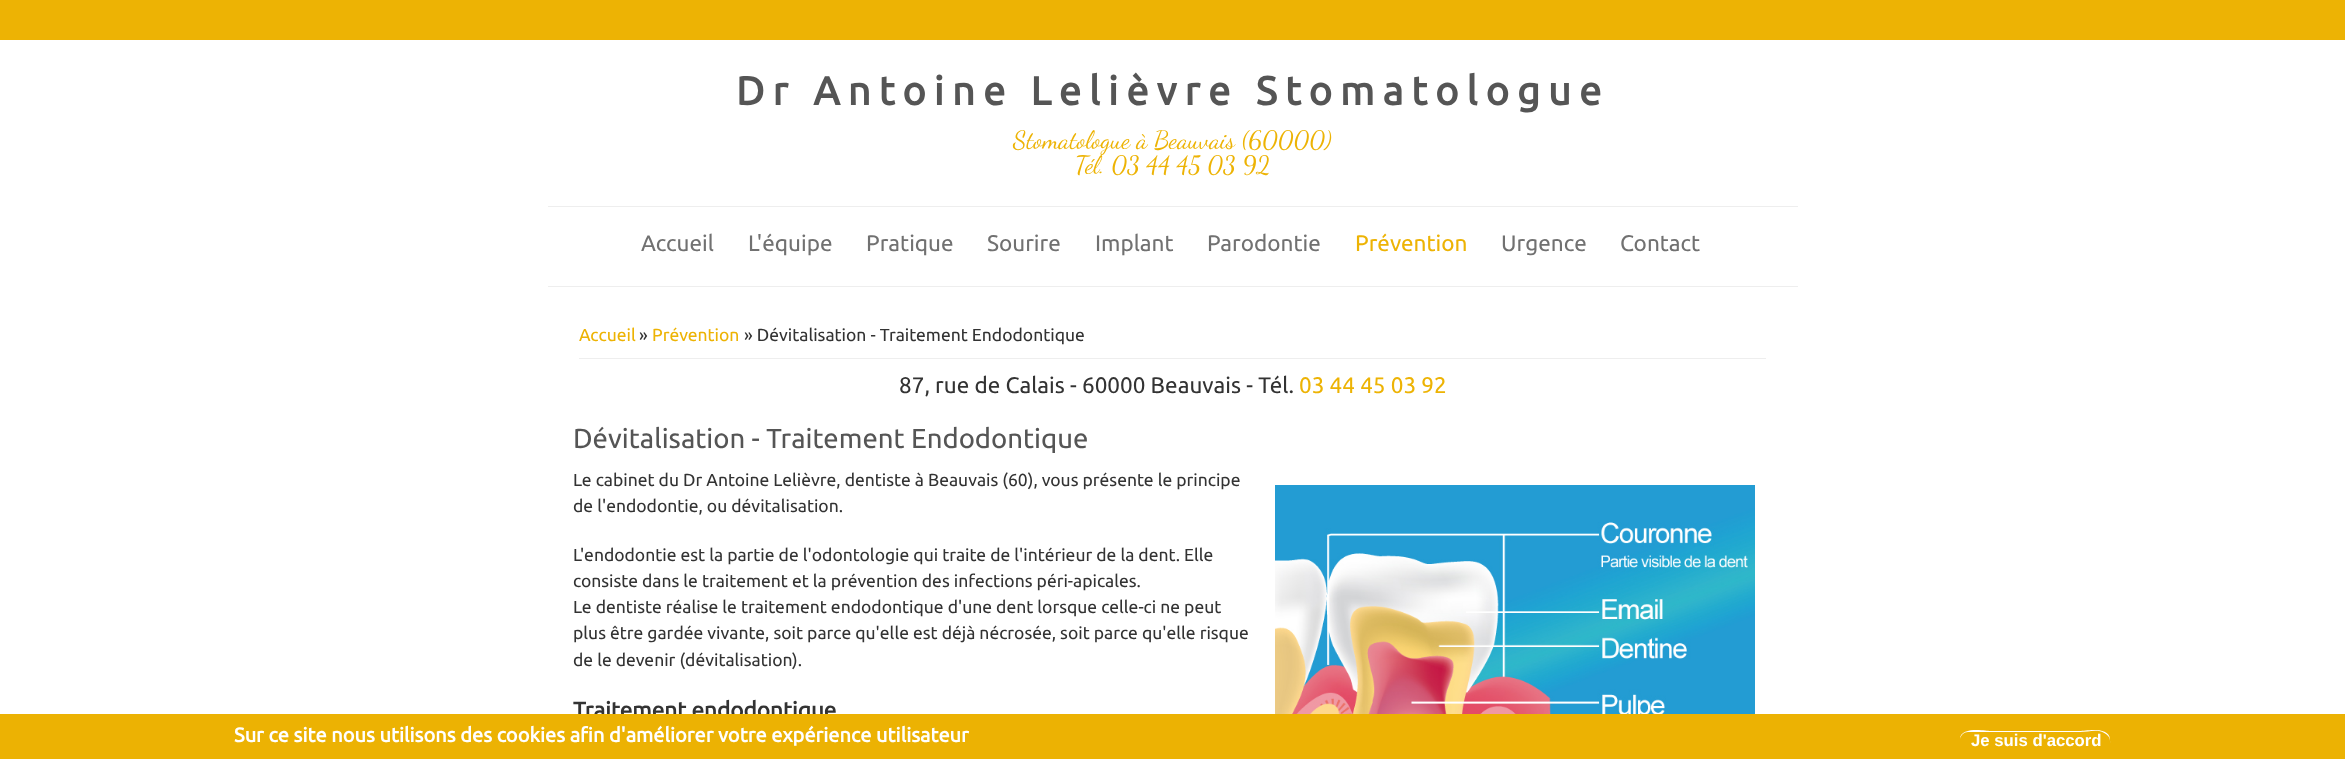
<!DOCTYPE html>
<meta charset="utf-8">
<style>body { margin: 0 } canvas { display: block }</style>
<canvas id="canvas" width="2345" height="759"></canvas>
<img id="img1" src="img_01.png" hidden>
<script>
window.onload = function () {
	const canvas = document.getElementById("canvas");
	const ctx = canvas.getContext("2d");
	ctx.miterLimit = 4;
	ctx.fontKerning = "normal";
	function txt(s, x, y) {
		ctx.fillText(s, x, y);
	}
	function fill(x, y, w, h) {
		ctx.fillRect(x, y, w, h);
	}
	function img(id, x, y, w, h) {
		ctx.drawImage(document.getElementById(id), x, y, w, h);
	}

	ctx.fillStyle = "#FFFFFF";
	fill(0, 0, 2345, 759);
	ctx.fillStyle = "#EDB304";
	fill(0, 0, 2345, 40);
	ctx.fillStyle = "#EEEEEE";
	fill(548, 206, 1250, 1);
	fill(548, 286, 1250, 1);
	fill(579, 358, 1187, 1);
	img("img1", 1275, 485, 480, 229);
	ctx.letterSpacing = "8px";
	ctx.font = "bold 40px Ubuntu";
	ctx.fillStyle = "#555555";
	txt("Dr Antoine Lelièvre Stomatologue", 736, 105);
	ctx.letterSpacing = "0px";
	ctx.font = "25px Dancing Script";
	ctx.fillStyle = "#EDB304";
	txt("Stomatologue à Beauvais (60000)", 1013, 148);
	txt("Tél. 03 44 45 03 92", 1075, 173);
	ctx.font = "22.5px Ubuntu";
	ctx.fillStyle = "#717171";
	txt("Accueil", 641, 251);
	txt("L'équipe", 748, 251);
	txt("Pratique", 866, 251);
	txt("Sourire", 987, 251);
	txt("Implant", 1095, 251);
	txt("Parodontie", 1207, 251);
	ctx.fillStyle = "#EDB304";
	txt("Prévention", 1355, 251);
	ctx.fillStyle = "#717171";
	txt("Urgence", 1501, 251);
	txt("Contact", 1620, 251);
	ctx.font = "17.5px Ubuntu";
	ctx.fillStyle = "#EDB304";
	txt("Accueil", 579, 341);
	ctx.fillStyle = "#333333";
	txt("»", 639, 341);
	ctx.fillStyle = "#EDB304";
	txt("Prévention", 652, 341);
	ctx.fillStyle = "#333333";
	txt("» Dévitalisation - Traitement Endodontique", 744, 341);
	ctx.font = "22.5px Ubuntu";
	txt("87, rue de Calais - 60000 Beauvais - Tél.", 899, 393);
	ctx.fillStyle = "#EDB304";
	txt("03 44 45 03 92", 1299, 393);
	ctx.font = "27.5px Ubuntu";
	ctx.fillStyle = "#555555";
	txt("Dévitalisation - Traitement Endodontique", 573, 448);
	ctx.font = "17.5px Ubuntu";
	ctx.fillStyle = "#333333";
	txt("Le cabinet du Dr Antoine Lelièvre, dentiste à Beauvais (60), vous présente le principe", 573, 486);
	txt("de l'endodontie, ou dévitalisation.", 573, 512);
	txt("L'endodontie est la partie de l'odontologie qui traite de l'intérieur de la dent. Elle", 573, 561);
	txt("consiste dans le traitement et la prévention des infections péri-apicales.", 573, 587);
	txt("Le dentiste réalise le traitement endodontique d'une dent lorsque celle-ci ne peut", 573, 613);
	txt("plus être gardée vivante, soit parce qu'elle est déjà nécrosée, soit parce qu'elle risque", 573, 639);
	txt("de le devenir (dévitalisation).", 573, 666);
	ctx.font = "bold 22.5px Ubuntu";
	txt("Traitement endodontique", 573, 718);
	ctx.fillStyle = "#ECB203";
	fill(0, 714, 2345, 45);
	ctx.font = "bold 20px Ubuntu";
	ctx.fillStyle = "#FFFFFF";
	txt("Sur ce site nous utilisons des cookies afin d'améliorer votre expérience utilisateur", 234, 742);
	ctx.beginPath();
	ctx.moveTo(1968, 732);
	ctx.lineTo(2080, 732);
	ctx.bezierCurveTo(2086, 732, 2093, 730, 2099, 731);
	ctx.bezierCurveTo(2107, 733, 2111, 737, 2110, 744);
	ctx.lineTo(2110, 739);
	ctx.bezierCurveTo(2109, 726, 2085, 731, 2080, 731);
	ctx.lineTo(1990, 731);
	ctx.bezierCurveTo(1987, 731, 1960, 726, 1960, 739);
	ctx.bezierCurveTo(1961, 735, 1964, 732, 1968, 732);
	ctx.closePath();
	ctx.fill();
	ctx.font = "bold 16.75px Liberation Sans";
	txt("Je suis d'accord", 1971, 746);
};
</script>
